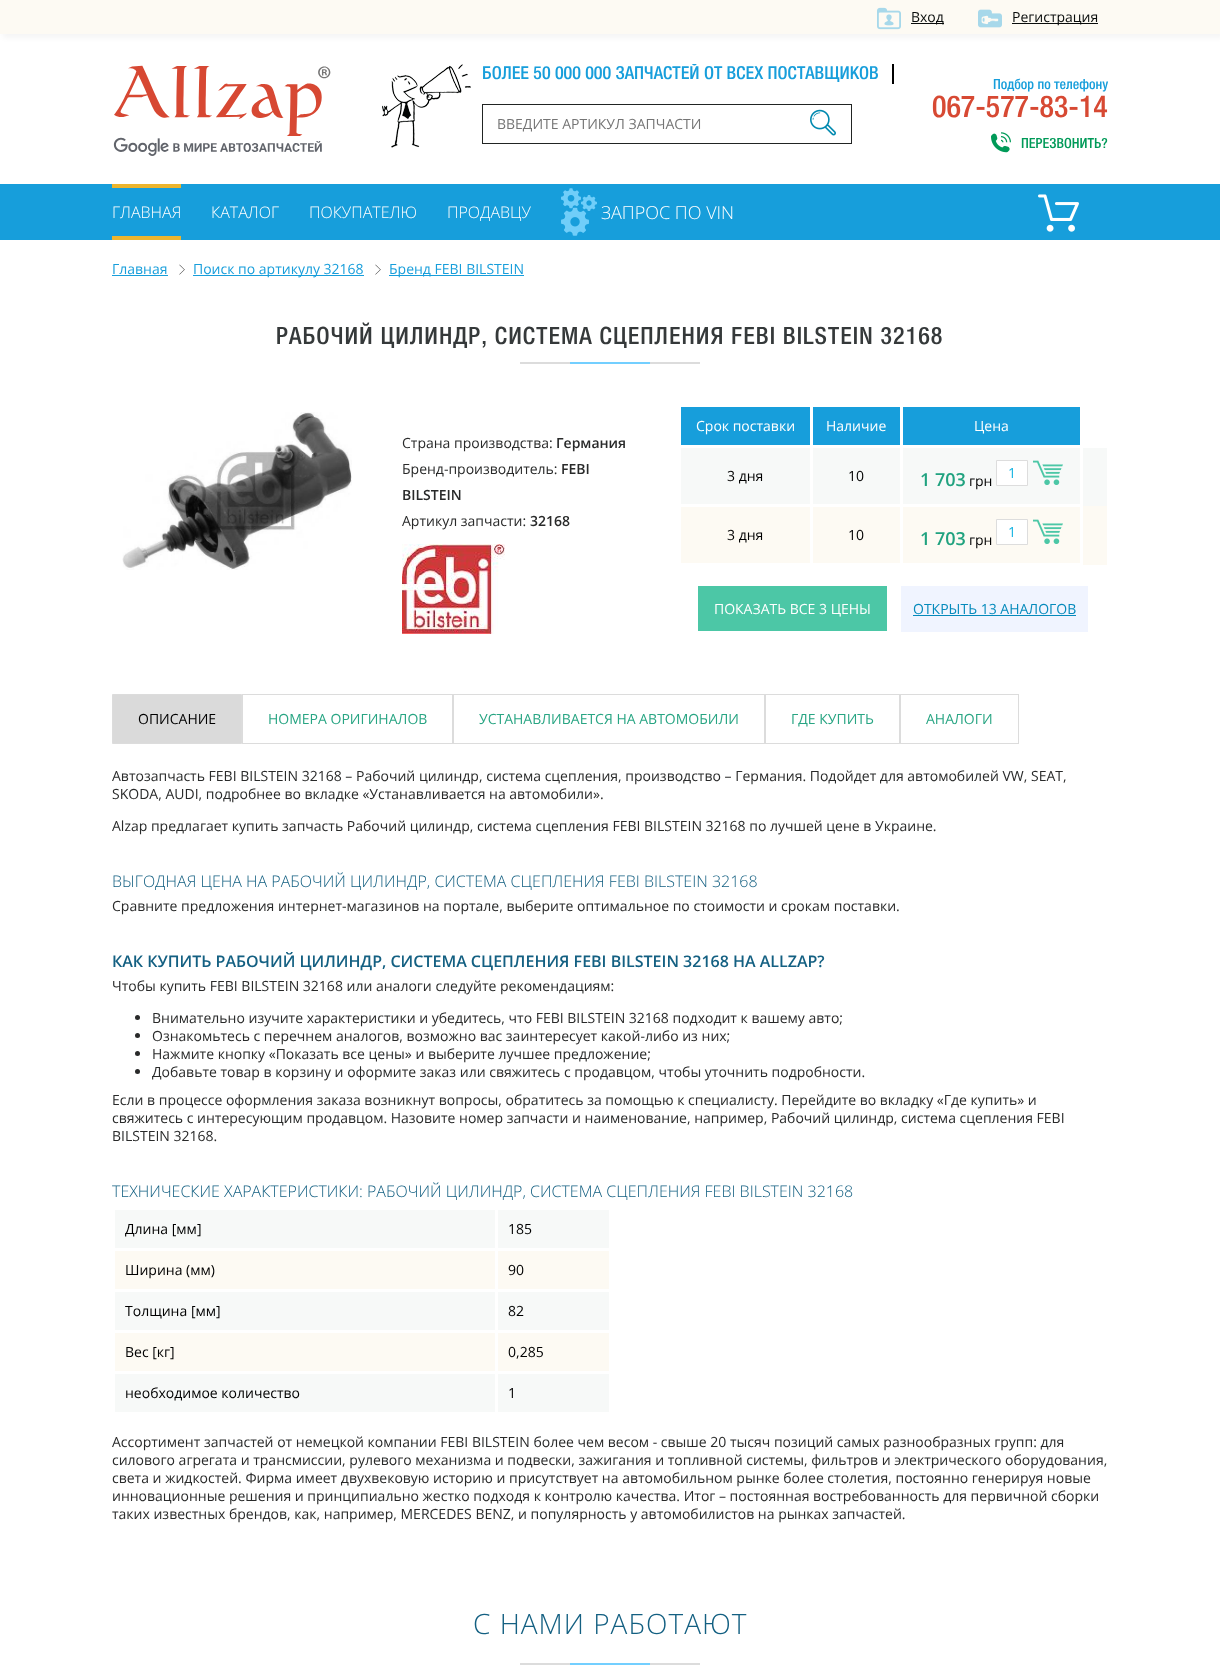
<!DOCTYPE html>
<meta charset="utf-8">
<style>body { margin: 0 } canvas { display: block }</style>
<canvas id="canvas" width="1220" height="1667"></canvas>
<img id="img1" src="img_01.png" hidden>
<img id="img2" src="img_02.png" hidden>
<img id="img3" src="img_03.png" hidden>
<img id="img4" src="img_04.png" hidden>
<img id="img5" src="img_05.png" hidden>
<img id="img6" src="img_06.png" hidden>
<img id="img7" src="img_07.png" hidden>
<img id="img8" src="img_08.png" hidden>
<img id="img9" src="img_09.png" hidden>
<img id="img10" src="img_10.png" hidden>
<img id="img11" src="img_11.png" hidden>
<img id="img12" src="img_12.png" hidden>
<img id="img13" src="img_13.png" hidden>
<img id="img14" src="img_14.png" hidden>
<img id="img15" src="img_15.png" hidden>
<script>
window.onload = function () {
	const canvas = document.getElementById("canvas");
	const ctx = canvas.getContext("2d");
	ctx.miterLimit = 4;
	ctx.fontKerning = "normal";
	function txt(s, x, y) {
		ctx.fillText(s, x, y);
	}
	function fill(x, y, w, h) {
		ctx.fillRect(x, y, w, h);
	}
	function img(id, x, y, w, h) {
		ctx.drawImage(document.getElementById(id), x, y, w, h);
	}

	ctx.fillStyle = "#FFFFFF";
	fill(0, 0, 1220, 1667);
	ctx.fillStyle = "rgba(0, 0, 0, 0.04)";
	ctx.filter = "blur(2.5px)";
	ctx.beginPath();
	ctx.rect(3, 4, 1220, 34);
	ctx.fill();
	ctx.filter = "none";
	ctx.fillStyle = "#FDFAF3";
	fill(0, 0, 1220, 34);
	img("img1", 877, 7, 24, 23);
	ctx.fillStyle = "#090C0B";
	fill(911, 23, 33, 1);
	img("img2", 978, 9, 24, 19);
	fill(1012, 23, 86, 1);
	img("img3", 113, 65, 218, 91);
	img("img4", 382, 64, 89, 84);
	ctx.fillStyle = "#000000";
	fill(892, 64, 2, 20);
	ctx.strokeStyle = "#212423";
	ctx.strokeRect(482.5, 104.5, 369, 39);
	img("img5", 810, 109, 26, 27);
	img("img6", 991, 132, 20, 21);
	ctx.fillStyle = "#179EDB";
	fill(0, 184, 1220, 56);
	ctx.fillStyle = "#EDB52D";
	fill(112, 184, 69, 4);
	fill(112, 236, 69, 4);
	img("img7", 561, 188, 20, 21);
	img("img8", 581, 195, 16, 16);
	img("img9", 561, 207, 28, 29);
	img("img10", 1038, 194, 41, 38);
	ctx.fillStyle = "#179EDB";
	fill(112, 275, 56, 1);
	img("img11", 179, 264, 6, 11);
	fill(193, 275, 171, 1);
	img("img11", 375, 264, 6, 11);
	fill(389, 275, 135, 1);
	ctx.fillStyle = "#73CFFF";
	fill(570, 362, 80, 2);
	ctx.fillStyle = "#DCDCDC";
	fill(650, 362, 50, 2);
	fill(520, 362, 50, 2);
	img("img12", 122, 412, 230, 158);
	img("img13", 402, 544, 103, 90);
	ctx.fillStyle = "#179EDB";
	fill(681, 407, 129, 38);
	fill(813, 407, 87, 38);
	fill(903, 407, 177, 38);
	ctx.fillStyle = "#F7F9F8";
	fill(681, 448, 426, 58);
	ctx.fillStyle = "#FDFAF3";
	fill(681, 506, 426, 59);
	ctx.fillStyle = "#FFFFFF";
	fill(900, 504, 183, 3);
	fill(1080, 445, 3, 121);
	fill(900, 563, 183, 2);
	fill(900, 504, 3, 62);
	fill(810, 504, 93, 3);
	fill(810, 563, 93, 2);
	fill(810, 504, 3, 62);
	fill(678, 504, 135, 3);
	fill(810, 445, 3, 62);
	fill(900, 445, 3, 62);
	ctx.beginPath();
	ctx.rect(996.5, 460.5, 31, 25);
	ctx.fill();
	ctx.strokeStyle = "#DDDDDD";
	ctx.stroke();
	img("img14", 1033, 460, 30, 25);
	fill(678, 563, 135, 2);
	ctx.beginPath();
	ctx.rect(996.5, 519.5, 31, 25);
	ctx.fill();
	ctx.stroke();
	img("img15", 1033, 519, 30, 25);
	ctx.fillStyle = "#4CC7A6";
	fill(698, 586, 189, 45);
	ctx.fillStyle = "#F0F4FF";
	fill(901, 586, 187, 46);
	ctx.fillStyle = "#058ABC";
	fill(913, 615, 163, 1);
	ctx.fillStyle = "#DADADA";
	ctx.beginPath();
	ctx.rect(112.5, 694.5, 129, 49);
	ctx.fill();
	ctx.strokeStyle = "#DCDCDC";
	ctx.stroke();
	ctx.strokeRect(242.5, 694.5, 210, 49);
	ctx.strokeRect(453.5, 694.5, 311, 49);
	ctx.strokeRect(765.5, 694.5, 134, 49);
	ctx.strokeRect(900.5, 694.5, 118, 49);
	ctx.fillStyle = "#292A2A";
	ctx.beginPath();
	ctx.arc(137.5, 1017.5, 2.5, 0, Math.PI * 2);
	ctx.fill();
	ctx.beginPath();
	ctx.arc(137.5, 1035.5, 2.5, 0, Math.PI * 2);
	ctx.fill();
	ctx.beginPath();
	ctx.arc(137.5, 1053.5, 2.5, 0, Math.PI * 2);
	ctx.fill();
	ctx.beginPath();
	ctx.arc(137.5, 1071.5, 2.5, 0, Math.PI * 2);
	ctx.fill();
	ctx.fillStyle = "#F7F9F8";
	fill(115, 1210, 494, 38);
	ctx.fillStyle = "#FDFAF3";
	fill(115, 1251, 494, 38);
	ctx.fillStyle = "#F7F9F8";
	fill(115, 1292, 494, 38);
	ctx.fillStyle = "#FDFAF3";
	fill(115, 1333, 494, 38);
	ctx.fillStyle = "#F7F9F8";
	fill(115, 1374, 494, 38);
	ctx.fillStyle = "#FFFFFF";
	fill(495, 1207, 3, 208);
	ctx.fillStyle = "#73CFFF";
	fill(570, 1663, 80, 2);
	ctx.fillStyle = "#DCDCDC";
	fill(650, 1663, 50, 2);
	fill(520, 1663, 50, 2);
	ctx.font = "14px Open Sans";
	ctx.fillStyle = "#090C0B";
	txt("Вход", 911, 22);
	txt("Регистрация", 1012, 22);
	ctx.save();
	ctx.beginPath();
	ctx.rect(482, 64, 410, 20);
	ctx.clip();
	ctx.font = "18px 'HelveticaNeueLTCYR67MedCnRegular'";
	ctx.fillStyle = "#179EDB";
	txt("БОЛЕЕ 50 000 000 ЗАПЧАСТЕЙ ОТ ВСЕХ ПОСТАВЩИКОВ", 482, 79);
	ctx.restore();
	ctx.fillStyle = "#757575";
	txt("ВВЕДИТЕ АРТИКУЛ ЗАПЧАСТИ", 497, 129);
	ctx.font = "14px 'HelveticaNeueLTCYR67MedCnRegular'";
	ctx.fillStyle = "#179EDB";
	txt("Подбор по телефону", 993, 89);
	ctx.font = "30px 'HelveticaNeueLTCYR67MedCnRegular'";
	ctx.fillStyle = "#D74933";
	txt("067-577-83-14", 932, 117);
	ctx.font = "14px 'HelveticaNeueLTCYR67MedCnRegular'";
	ctx.fillStyle = "#009A58";
	txt("ПЕРЕЗВОНИТЬ?", 1021, 148);
	ctx.font = "300 16px Open Sans";
	ctx.fillStyle = "#FFFFFF";
	txt("ГЛАВНАЯ", 112, 218);
	txt("КАТАЛОГ", 211, 218);
	txt("ПОКУПАТЕЛЮ", 309, 218);
	txt("ПРОДАВЦУ", 447, 218);
	ctx.font = "300 18px Open Sans";
	txt("ЗАПРОС ПО VIN", 601, 219);
	ctx.font = "14px Open Sans";
	ctx.fillStyle = "#179EDB";
	txt("Главная", 112, 274);
	txt("Поиск по артикулу 32168", 193, 274);
	txt("Бренд FEBI BILSTEIN", 389, 274);
	ctx.letterSpacing = "1px";
	ctx.font = "24px 'HelveticaNeueLTCYR67MedCnRegular'";
	ctx.fillStyle = "#35393A";
	txt("РАБОЧИЙ ЦИЛИНДР, СИСТЕМА СЦЕПЛЕНИЯ FEBI BILSTEIN 32168", 276, 344);
	ctx.letterSpacing = "0px";
	ctx.font = "14px Open Sans";
	ctx.fillStyle = "#292A2A";
	txt("Страна производства:", 402, 448);
	ctx.font = "600 14px Open Sans";
	txt("Германия", 556, 448);
	ctx.font = "14px Open Sans";
	txt("Бренд-производитель:", 402, 474);
	ctx.font = "600 14px Open Sans";
	txt("FEBI", 561, 474);
	txt("BILSTEIN", 402, 500);
	ctx.font = "14px Open Sans";
	txt("Артикул запчасти:", 402, 526);
	ctx.font = "600 14px Open Sans";
	txt("32168", 530, 526);
	ctx.font = "14px Open Sans";
	ctx.fillStyle = "#FFFFFF";
	txt("Срок поставки", 696, 431);
	txt("Наличие", 826, 431);
	txt("Цена", 974, 431);
	ctx.fillStyle = "#000000";
	txt("3 дня", 727, 481);
	txt("10", 848, 481);
	ctx.font = "600 18px Open Sans";
	ctx.fillStyle = "#20A27F";
	txt("1 703", 920, 486);
	ctx.font = "14px Open Sans";
	ctx.fillStyle = "#000000";
	txt("грн", 969, 486);
	ctx.fillStyle = "#15B3E1";
	txt("1", 1008, 478);
	ctx.fillStyle = "#000000";
	txt("3 дня", 727, 540);
	txt("10", 848, 540);
	ctx.font = "600 18px Open Sans";
	ctx.fillStyle = "#20A27F";
	txt("1 703", 920, 545);
	ctx.font = "14px Open Sans";
	ctx.fillStyle = "#000000";
	txt("грн", 969, 545);
	ctx.fillStyle = "#15B3E1";
	txt("1", 1008, 537);
	ctx.fillStyle = "#FFFFFF";
	txt("ПОКАЗАТЬ ВСЕ 3 ЦЕНЫ", 714, 614);
	ctx.fillStyle = "#058ABC";
	txt("ОТКРЫТЬ 13 АНАЛОГОВ", 913, 614);
	ctx.fillStyle = "#000000";
	txt("ОПИСАНИЕ", 138, 724);
	ctx.fillStyle = "#28A583";
	txt("НОМЕРА ОРИГИНАЛОВ", 268, 724);
	txt("УСТАНАВЛИВАЕТСЯ НА АВТОМОБИЛИ", 479, 724);
	txt("ГДЕ КУПИТЬ", 791, 724);
	txt("АНАЛОГИ", 926, 724);
	ctx.fillStyle = "#292A2A";
	txt("Автозапчасть FEBI BILSTEIN 32168 – Рабочий цилиндр, система сцепления, производство – Германия. Подойдет для автомобилей VW, SEAT,", 112, 781);
	txt("SKODA, AUDI, подробнее во вкладке «Устанавливается на автомобили».", 112, 799);
	txt("Alzap предлагает купить запчасть Рабочий цилиндр, система сцепления FEBI BILSTEIN 32168 по лучшей цене в Украине.", 112, 831);
	ctx.font = "300 16px Open Sans";
	ctx.fillStyle = "#146082";
	txt("ВЫГОДНАЯ ЦЕНА НА РАБОЧИЙ ЦИЛИНДР, СИСТЕМА СЦЕПЛЕНИЯ FEBI BILSTEIN 32168", 112, 887);
	ctx.font = "14px Open Sans";
	ctx.fillStyle = "#292A2A";
	txt("Сравните предложения интернет-магазинов на портале, выберите оптимальное по стоимости и срокам поставки.", 112, 911);
	ctx.font = "600 16px Open Sans";
	ctx.fillStyle = "#146082";
	txt("КАК КУПИТЬ РАБОЧИЙ ЦИЛИНДР, СИСТЕМА СЦЕПЛЕНИЯ FEBI BILSTEIN 32168 НА ALLZAP?", 112, 967);
	ctx.font = "14px Open Sans";
	ctx.fillStyle = "#292A2A";
	txt("Чтобы купить FEBI BILSTEIN 32168 или аналоги следуйте рекомендациям:", 112, 991);
	txt("Внимательно изучите характеристики и убедитесь, что FEBI BILSTEIN 32168 подходит к вашему авто;", 152, 1023);
	txt("Ознакомьтесь с перечнем аналогов, возможно вас заинтересует какой-либо из них;", 152, 1041);
	txt("Нажмите кнопку «Показать все цены» и выберите лучшее предложение;", 152, 1059);
	txt("Добавьте товар в корзину и оформите заказ или свяжитесь с продавцом, чтобы уточнить подробности.", 152, 1077);
	txt("Если в процессе оформления заказа возникнут вопросы, обратитесь за помощью к специалисту. Перейдите во вкладку «Где купить» и", 112, 1105);
	txt("свяжитесь с интересующим продавцом. Назовите номер запчасти и наименование, например, Рабочий цилиндр, система сцепления FEBI", 112, 1123);
	txt("BILSTEIN 32168.", 112, 1141);
	ctx.font = "300 16px Open Sans";
	ctx.fillStyle = "#146082";
	txt("ТЕХНИЧЕСКИЕ ХАРАКТЕРИСТИКИ: РАБОЧИЙ ЦИЛИНДР, СИСТЕМА СЦЕПЛЕНИЯ FEBI BILSTEIN 32168", 112, 1197);
	ctx.font = "14px Open Sans";
	ctx.fillStyle = "#000000";
	txt("Длина [мм]", 125, 1234);
	txt("185", 508, 1234);
	txt("Ширина (мм)", 125, 1275);
	txt("90", 508, 1275);
	txt("Толщина [мм]", 125, 1316);
	txt("82", 508, 1316);
	txt("Вес [кг]", 125, 1357);
	txt("0,285", 508, 1357);
	txt("необходимое количество", 125, 1398);
	txt("1", 508, 1398);
	ctx.fillStyle = "#292A2A";
	txt("Ассортимент запчастей от немецкой компании FEBI BILSTEIN более чем весом - свыше 20 тысяч позиций самых разнообразных групп: для", 112, 1447);
	txt("силового агрегата и трансмиссии, рулевого механизма и подвески, зажигания и топливной системы, фильтров и электрического оборудования,", 112, 1465);
	txt("света и жидкостей. Фирма имеет двухвековую историю и присутствует на автомобильном рынке более столетия, постоянно генерируя новые", 112, 1483);
	txt("инновационные решения и принципиально жестко подходя к контролю качества. Итог – постоянная востребованность для первичной сборки", 112, 1501);
	txt("таких известных брендов, как, например, MERCEDES BENZ, и популярность у автомобилистов на рынках запчастей.", 112, 1519);
	ctx.letterSpacing = "1px";
	ctx.font = "300 28px Open Sans";
	ctx.fillStyle = "#146082";
	txt("С НАМИ РАБОТАЮТ", 473, 1634);
};
</script>
